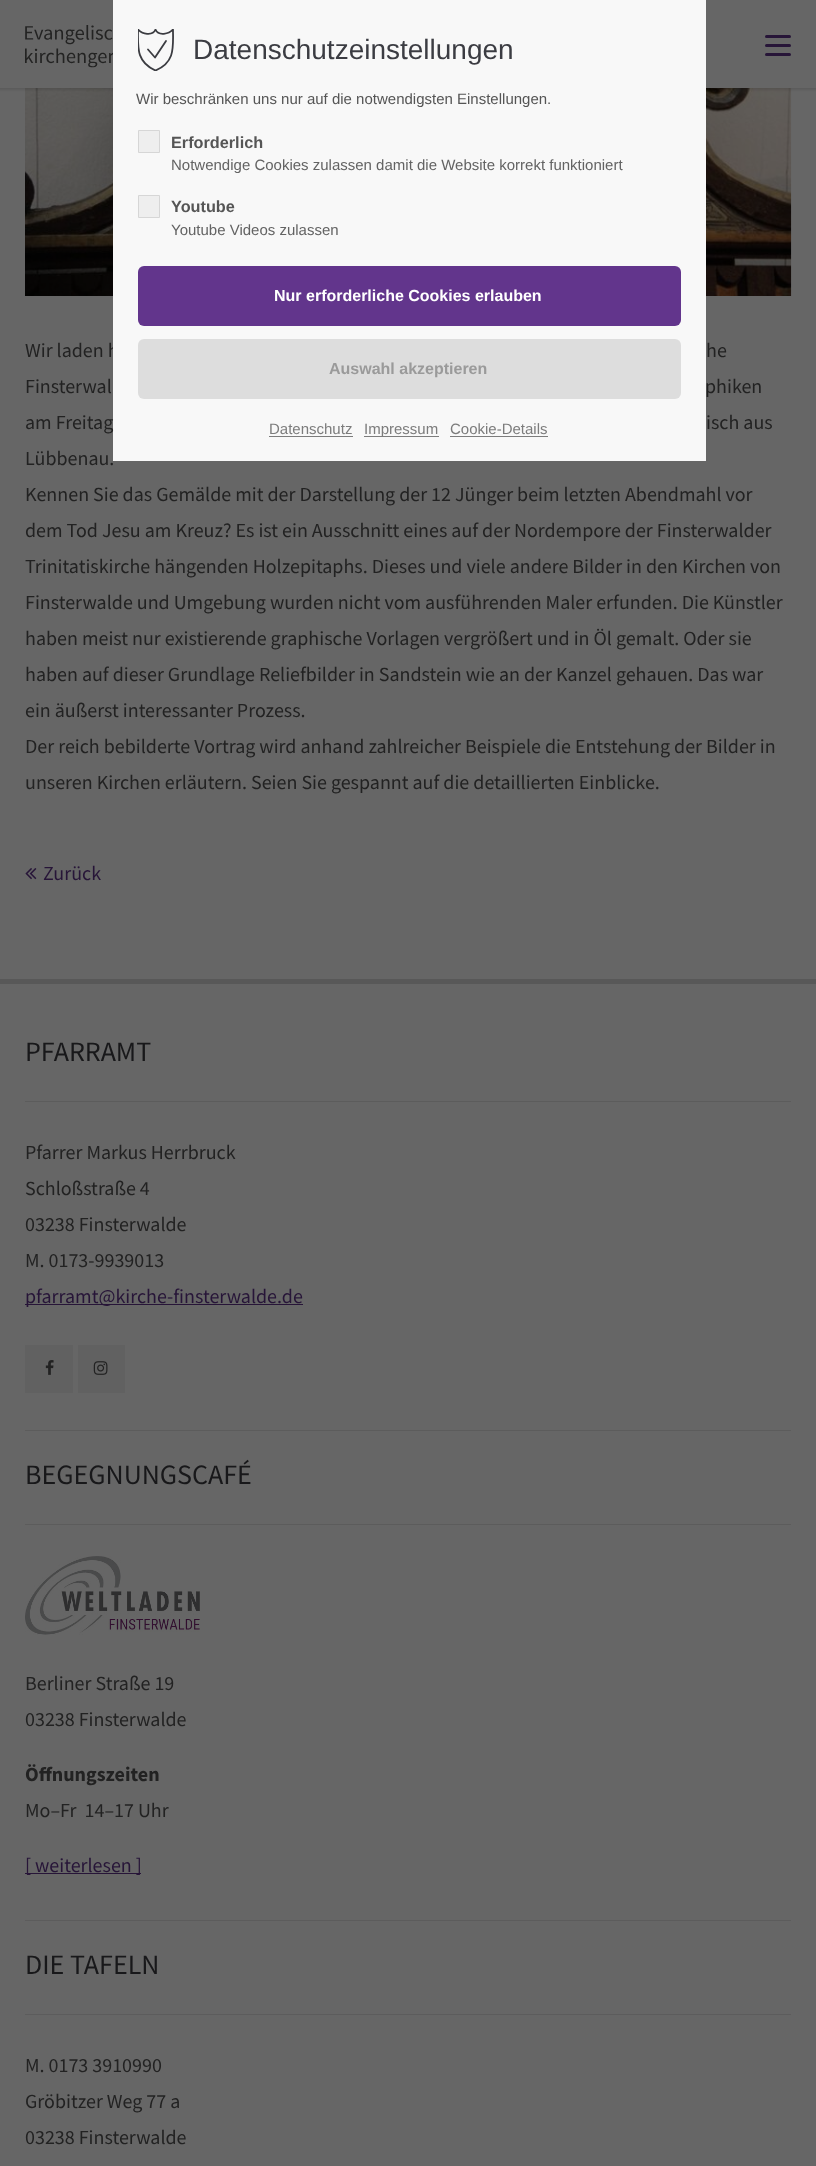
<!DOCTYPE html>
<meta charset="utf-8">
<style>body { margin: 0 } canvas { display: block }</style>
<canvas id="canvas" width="816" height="2166"></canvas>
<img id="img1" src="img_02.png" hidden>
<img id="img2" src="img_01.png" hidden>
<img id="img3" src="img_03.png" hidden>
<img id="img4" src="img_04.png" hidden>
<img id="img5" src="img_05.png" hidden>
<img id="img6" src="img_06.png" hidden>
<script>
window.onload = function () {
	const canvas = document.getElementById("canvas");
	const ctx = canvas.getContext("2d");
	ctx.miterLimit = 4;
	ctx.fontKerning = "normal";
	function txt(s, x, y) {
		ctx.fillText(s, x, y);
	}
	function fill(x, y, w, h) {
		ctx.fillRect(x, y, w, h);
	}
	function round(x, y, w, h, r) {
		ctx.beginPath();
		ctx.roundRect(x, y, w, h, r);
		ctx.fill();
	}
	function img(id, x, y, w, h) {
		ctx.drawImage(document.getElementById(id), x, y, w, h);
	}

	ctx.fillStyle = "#666666";
	fill(0, 0, 816, 2166);
	img("img1", 25, 88, 767, 208);
	ctx.fillStyle = "rgba(0, 0, 0, 0.1)";
	ctx.filter = "blur(1px)";
	ctx.beginPath();
	ctx.rect(-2, -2, 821, 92);
	ctx.fill();
	ctx.filter = "none";
	ctx.fillStyle = "#666666";
	fill(0, 0, 816, 88);
	img("img2", 25, 25, 88, 43);
	ctx.fillStyle = "#271538";
	round(765, 44, 26, 3, 1.5);
	round(765, 35, 26, 3, 1.5);
	round(765, 53, 26, 3, 1.5);
	img("img3", 25, 868, 12, 12);
	ctx.fillStyle = "#585858";
	fill(0, 979, 816, 5);
	ctx.fillStyle = "#5C5C5C";
	fill(25, 1101, 766, 1);
	ctx.fillStyle = "#271538";
	fill(25, 1304, 278, 1);
	ctx.fillStyle = "#616161";
	fill(25, 1345, 48, 48);
	img("img4", 45, 1360, 9, 15);
	fill(78, 1345, 47, 48);
	img("img5", 93, 1361, 15, 14);
	ctx.fillStyle = "#5C5C5C";
	fill(25, 1430, 766, 1);
	fill(25, 1524, 766, 1);
	img("img6", 25, 1556, 175, 79);
	ctx.fillStyle = "#271538";
	fill(25, 1873, 116, 1);
	ctx.fillStyle = "#5C5C5C";
	fill(25, 1920, 766, 1);
	fill(25, 2014, 766, 1);
	ctx.font = "20px Source Sans Pro";
	ctx.fillStyle = "#222222";
	txt("Wir laden h", 25, 357);
	ctx.fillStyle = "#F8F8F8";
	fill(113, 0, 593, 461);
	ctx.fillStyle = "#DDDDDD";
	round(138, 339, 543, 60, 6);
	ctx.font = "bold 16px Liberation Sans";
	ctx.fillStyle = "#9A9A9A";
	txt("Auswahl akzeptieren", 329, 374);
	ctx.fillStyle = "#62358C";
	round(138, 266, 543, 60, 6);
	ctx.fillStyle = "#FFFFFF";
	txt("Nur erforderliche Cookies erlauben", 274, 301);
	ctx.fillStyle = "#EEEEEE";
	ctx.beginPath();
	ctx.rect(138.5, 195.5, 21, 22);
	ctx.fill();
	ctx.strokeStyle = "#D6D6D6";
	ctx.stroke();
	ctx.font = "15px Liberation Sans";
	ctx.fillStyle = "#636363";
	txt("Youtube Videos zulassen", 171, 235);
	ctx.font = "bold 16.25px Liberation Sans";
	ctx.fillStyle = "#555555";
	txt("Youtube", 171, 212);
	ctx.fillStyle = "#EEEEEE";
	ctx.beginPath();
	ctx.rect(138.5, 130.5, 21, 22);
	ctx.fill();
	ctx.stroke();
	ctx.font = "15px Liberation Sans";
	ctx.fillStyle = "#636363";
	txt("Notwendige Cookies zulassen damit die Website korrekt funktioniert", 171, 170);
	ctx.font = "bold 16.25px Liberation Sans";
	ctx.fillStyle = "#555555";
	txt("Erforderlich", 171, 148);
	ctx.font = "15px Liberation Sans";
	ctx.fillStyle = "#7C7C7C";
	txt("Cookie-Details", 450, 434);
	fill(450, 436, 98, 1);
	fill(364, 436, 75, 1);
	txt("Impressum", 364, 434);
	txt("Datenschutz", 269, 434);
	fill(269, 436, 84, 1);
	ctx.fillStyle = "#555555";
	txt("Wir beschränken uns nur auf die notwendigsten Einstellungen.", 136, 104);
	ctx.font = "28px Liberation Sans";
	ctx.fillStyle = "#3B3C42";
	txt("Datenschutzeinstellungen", 193, 59);
	ctx.save();
	ctx.beginPath();
	ctx.rect(138, 29, 36, 42);
	ctx.clip();
	ctx.beginPath();
	ctx.moveTo(155.5, 70.5);
	ctx.bezierCurveTo(136, 62, 138, 47, 138, 29.5);
	ctx.bezierCurveTo(142, 34, 152.5, 36.5, 155.5, 29.5);
	ctx.bezierCurveTo(158.5, 36.5, 169, 34, 173, 29.5);
	ctx.bezierCurveTo(173, 47, 175.5, 62, 155.5, 70.5);
	ctx.closePath();
	ctx.strokeStyle = "#3B3C41";
	ctx.lineWidth = 1.8;
	ctx.lineCap = "round";
	ctx.lineJoin = "round";
	ctx.stroke();
	ctx.restore();
	ctx.beginPath();
	ctx.moveTo(148, 49.5);
	ctx.lineTo(155, 57.5);
	ctx.lineTo(166, 41);
	ctx.strokeStyle = "#3B3C41";
	ctx.lineWidth = 1.8;
	ctx.lineCap = "round";
	ctx.lineJoin = "round";
	ctx.stroke();
	ctx.font = "20px Source Sans Pro";
	ctx.fillStyle = "#222222";
	txt("he", 706, 357);
	txt("Finsterwal", 25, 393);
	txt("phiken", 705, 393);
	txt("am Freitag", 25, 429);
	txt("isch aus", 706, 429);
	txt("Lübbenau.", 25, 465);
	txt("Kennen Sie das Gemälde mit der Darstellung der 12 Jünger beim letzten Abendmahl vor", 25, 501);
	txt("dem Tod Jesu am Kreuz? Es ist ein Ausschnitt eines auf der Nordempore der Finsterwalder", 25, 537);
	txt("Trinitatiskirche hängenden Holzepitaphs. Dieses und viele andere Bilder in den Kirchen von", 25, 573);
	txt("Finsterwalde und Umgebung wurden nicht vom ausführenden Maler erfunden. Die Künstler", 25, 609);
	txt("haben meist nur existierende graphische Vorlagen vergrößert und in Öl gemalt. Oder sie", 25, 645);
	txt("haben auf dieser Grundlage Reliefbilder in Sandstein wie an der Kanzel gehauen. Das war", 25, 681);
	txt("ein äußerst interessanter Prozess.", 25, 717);
	txt("Der reich bebilderte Vortrag wird anhand zahlreicher Beispiele die Entstehung der Bilder in", 25, 753);
	txt("unseren Kirchen erläutern. Seien Sie gespannt auf die detaillierten Einblicke.", 25, 789);
	ctx.fillStyle = "#271538";
	txt("Zurück", 43, 880);
	ctx.font = "28px Source Sans Pro";
	ctx.fillStyle = "#18181A";
	txt("PFARRAMT", 25, 1061);
	ctx.font = "20px Source Sans Pro";
	ctx.fillStyle = "#222222";
	txt("Pfarrer Markus Herrbruck", 25, 1159);
	txt("Schloßstraße 4", 25, 1195);
	txt("03238 Finsterwalde", 25, 1231);
	txt("M. 0173-9939013", 25, 1267);
	ctx.fillStyle = "#271538";
	txt("pfarramt@kirche-finsterwalde.de", 25, 1303);
	ctx.font = "28px Source Sans Pro";
	ctx.fillStyle = "#18181A";
	txt("BEGEGNUNGSCAFÉ", 25, 1484);
	ctx.font = "20px Source Sans Pro";
	ctx.fillStyle = "#222222";
	txt("Berliner Straße 19", 25, 1690);
	txt("03238 Finsterwalde", 25, 1726);
	ctx.font = "bold 20px Source Sans Pro";
	txt("Öffnungszeiten", 25, 1781);
	ctx.font = "20px Source Sans Pro";
	txt("Mo–Fr  14–17 Uhr", 25, 1817);
	ctx.fillStyle = "#271538";
	txt("[ weiterlesen ]", 25, 1872);
	ctx.font = "28px Source Sans Pro";
	ctx.fillStyle = "#18181A";
	txt("DIE TAFELN", 25, 1974);
	ctx.font = "20px Source Sans Pro";
	ctx.fillStyle = "#222222";
	txt("M. 0173 3910990", 25, 2072);
	txt("Gröbitzer Weg 77 a", 25, 2108);
	txt("03238 Finsterwalde", 25, 2144);
};
</script>
